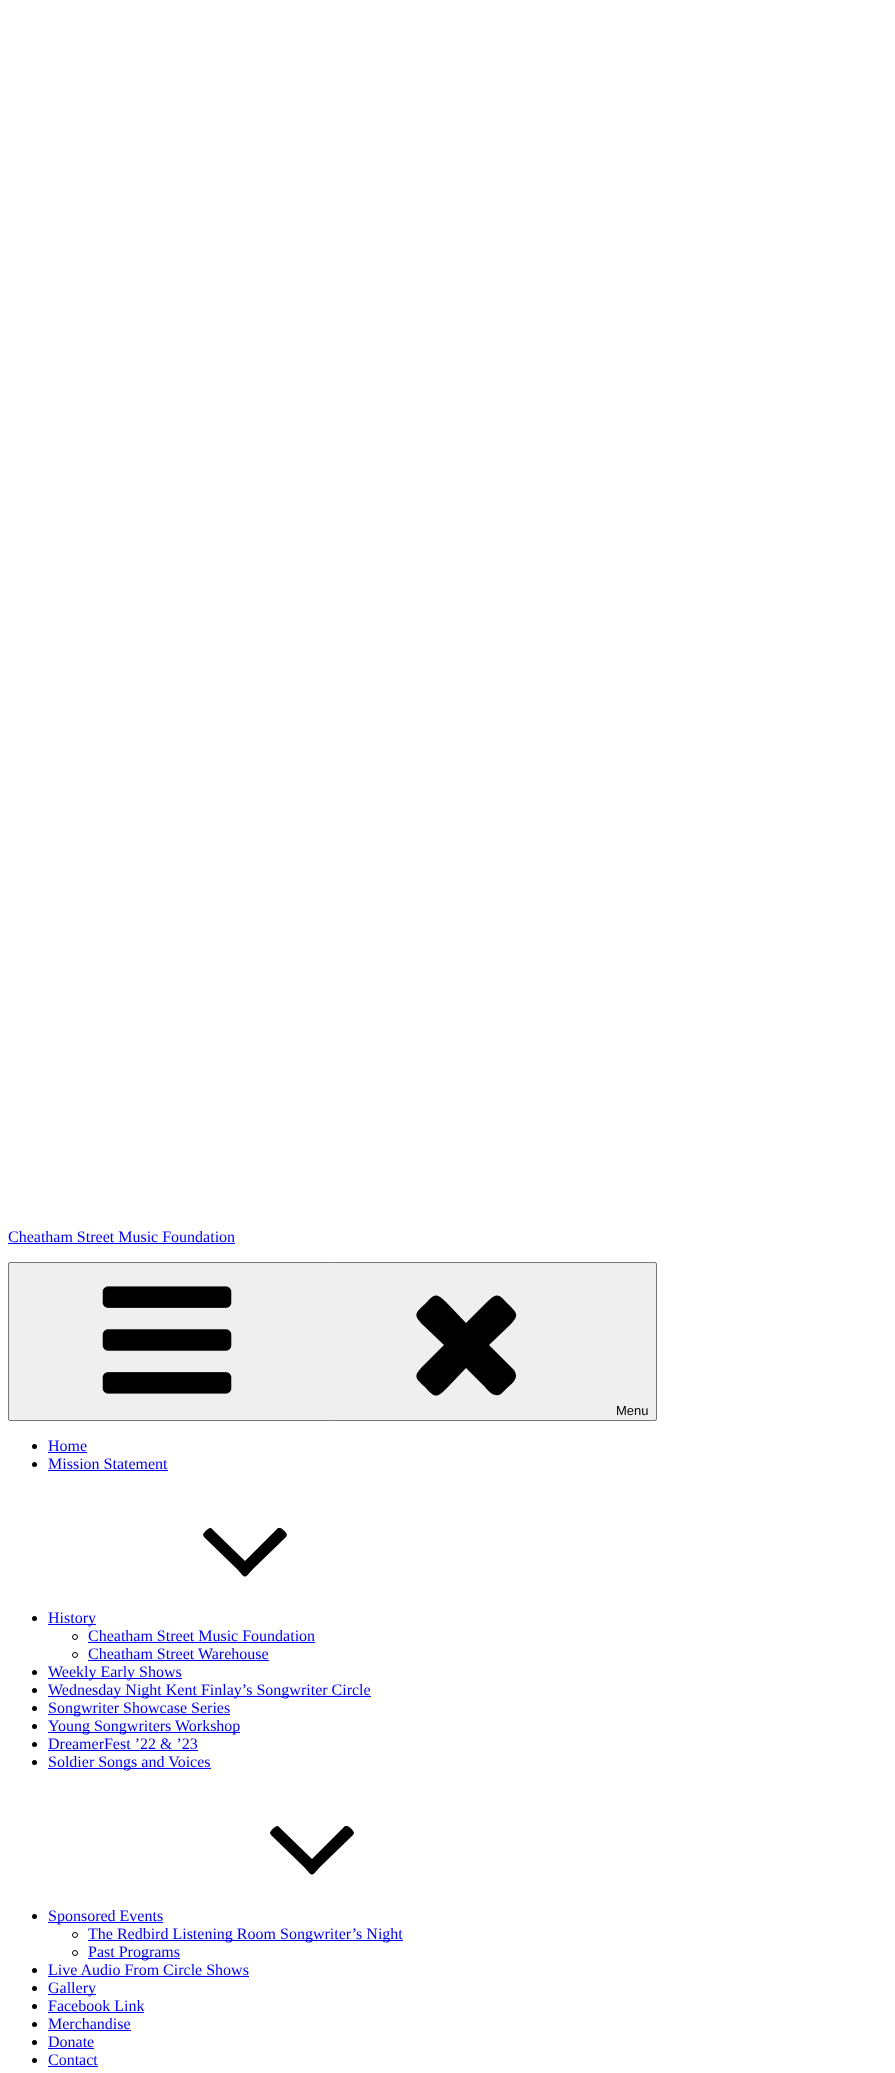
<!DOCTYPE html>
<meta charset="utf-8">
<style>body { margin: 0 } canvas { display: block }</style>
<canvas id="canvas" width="895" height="2073"></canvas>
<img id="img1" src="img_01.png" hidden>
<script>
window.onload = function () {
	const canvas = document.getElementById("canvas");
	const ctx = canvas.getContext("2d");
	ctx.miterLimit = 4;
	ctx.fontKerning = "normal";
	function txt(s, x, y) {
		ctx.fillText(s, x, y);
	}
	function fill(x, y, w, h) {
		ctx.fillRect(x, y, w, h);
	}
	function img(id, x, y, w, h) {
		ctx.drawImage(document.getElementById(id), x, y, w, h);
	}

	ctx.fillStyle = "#FFFFFF";
	fill(0, 0, 895, 2073);
	ctx.fillStyle = "#0000EE";
	fill(8, 1243, 227, 1);
	ctx.fillStyle = "#EFEFEF";
	ctx.beginPath();
	ctx.roundRect(8.5, 1262.5, 648, 158, 1.5);
	ctx.fill();
	ctx.strokeStyle = "#767676";
	ctx.stroke();
	img("img1", 102, 1286, 130, 108);
	ctx.fillStyle = "#000000";
	ctx.beginPath();
	ctx.moveTo(516, 1376);
	ctx.bezierCurveTo(516, 1381, 510, 1385, 506, 1389);
	ctx.lineTo(501, 1394);
	ctx.bezierCurveTo(494, 1399, 487, 1389, 483, 1385);
	ctx.lineTo(466, 1368);
	ctx.lineTo(446, 1389);
	ctx.bezierCurveTo(436, 1399, 434, 1397, 425, 1387);
	ctx.bezierCurveTo(415, 1378, 413, 1376, 423, 1366);
	ctx.lineTo(444, 1345);
	ctx.lineTo(423, 1325);
	ctx.bezierCurveTo(413, 1315, 415, 1313, 425, 1304);
	ctx.bezierCurveTo(434, 1294, 436, 1292, 446, 1302);
	ctx.lineTo(466, 1323);
	ctx.lineTo(487, 1302);
	ctx.bezierCurveTo(497, 1292, 499, 1294, 508, 1304);
	ctx.bezierCurveTo(517, 1313, 520, 1315, 510, 1325);
	ctx.lineTo(489, 1345);
	ctx.lineTo(514, 1370);
	ctx.bezierCurveTo(515, 1372, 516, 1373, 516, 1376);
	ctx.closePath();
	ctx.fill();
	ctx.beginPath();
	ctx.arc(34.5, 1446.5, 2.5, 0, Math.PI * 2);
	ctx.fill();
	ctx.fillStyle = "#0000EE";
	fill(48, 1452, 39, 1);
	ctx.fillStyle = "#000000";
	ctx.beginPath();
	ctx.arc(34.5, 1464.5, 2.5, 0, Math.PI * 2);
	ctx.fill();
	ctx.fillStyle = "#0000EE";
	fill(48, 1470, 120, 1);
	ctx.fillStyle = "#000000";
	ctx.beginPath();
	ctx.arc(34.5, 1618.5, 2.5, 0, Math.PI * 2);
	ctx.fill();
	ctx.fillStyle = "#0000EE";
	fill(48, 1624, 48, 1);
	ctx.fillStyle = "#000000";
	ctx.beginPath();
	ctx.moveTo(287, 1535);
	ctx.lineTo(286, 1537);
	ctx.lineTo(253, 1569);
	ctx.bezierCurveTo(244, 1579, 246, 1579, 237, 1569);
	ctx.lineTo(204, 1537);
	ctx.lineTo(203, 1535);
	ctx.bezierCurveTo(203, 1533, 209, 1527, 211, 1528);
	ctx.lineTo(245, 1561);
	ctx.lineTo(278, 1528);
	ctx.lineTo(280, 1528);
	ctx.bezierCurveTo(282, 1528, 287, 1533, 287, 1535);
	ctx.closePath();
	ctx.fill();
	ctx.beginPath();
	ctx.arc(75, 1637, 2.5, 0, Math.PI * 2);
	ctx.strokeStyle = "#000000";
	ctx.stroke();
	ctx.fillStyle = "#0000EE";
	fill(88, 1642, 227, 1);
	ctx.beginPath();
	ctx.arc(75, 1655, 2.5, 0, Math.PI * 2);
	ctx.stroke();
	fill(88, 1660, 181, 1);
	ctx.fillStyle = "#000000";
	ctx.beginPath();
	ctx.arc(34.5, 1672.5, 2.5, 0, Math.PI * 2);
	ctx.fill();
	ctx.fillStyle = "#0000EE";
	fill(48, 1678, 134, 1);
	ctx.fillStyle = "#000000";
	ctx.beginPath();
	ctx.arc(34.5, 1690.5, 2.5, 0, Math.PI * 2);
	ctx.fill();
	ctx.fillStyle = "#0000EE";
	fill(48, 1696, 323, 1);
	ctx.fillStyle = "#000000";
	ctx.beginPath();
	ctx.arc(34.5, 1708.5, 2.5, 0, Math.PI * 2);
	ctx.fill();
	ctx.fillStyle = "#0000EE";
	fill(48, 1714, 182, 1);
	ctx.fillStyle = "#000000";
	ctx.beginPath();
	ctx.arc(34.5, 1726.5, 2.5, 0, Math.PI * 2);
	ctx.fill();
	ctx.fillStyle = "#0000EE";
	fill(48, 1732, 192, 1);
	ctx.fillStyle = "#000000";
	ctx.beginPath();
	ctx.arc(34.5, 1744.5, 2.5, 0, Math.PI * 2);
	ctx.fill();
	ctx.fillStyle = "#0000EE";
	fill(48, 1750, 150, 1);
	ctx.fillStyle = "#000000";
	ctx.beginPath();
	ctx.arc(34.5, 1762.5, 2.5, 0, Math.PI * 2);
	ctx.fill();
	ctx.fillStyle = "#0000EE";
	fill(48, 1768, 163, 1);
	ctx.fillStyle = "#000000";
	ctx.beginPath();
	ctx.arc(34.5, 1916.5, 2.5, 0, Math.PI * 2);
	ctx.fill();
	ctx.fillStyle = "#0000EE";
	fill(48, 1922, 115, 1);
	ctx.fillStyle = "#000000";
	ctx.beginPath();
	ctx.moveTo(354, 1833);
	ctx.lineTo(353, 1835);
	ctx.lineTo(320, 1867);
	ctx.bezierCurveTo(311, 1877, 313, 1877, 304, 1867);
	ctx.lineTo(271, 1835);
	ctx.lineTo(270, 1833);
	ctx.bezierCurveTo(270, 1831, 276, 1825, 278, 1826);
	ctx.lineTo(312, 1859);
	ctx.lineTo(345, 1826);
	ctx.lineTo(347, 1826);
	ctx.bezierCurveTo(349, 1826, 354, 1831, 354, 1833);
	ctx.closePath();
	ctx.fill();
	ctx.beginPath();
	ctx.arc(75, 1935, 2.5, 0, Math.PI * 2);
	ctx.stroke();
	ctx.fillStyle = "#0000EE";
	fill(88, 1940, 315, 1);
	ctx.beginPath();
	ctx.arc(75, 1953, 2.5, 0, Math.PI * 2);
	ctx.stroke();
	fill(88, 1958, 92, 1);
	ctx.fillStyle = "#000000";
	ctx.beginPath();
	ctx.arc(34.5, 1970.5, 2.5, 0, Math.PI * 2);
	ctx.fill();
	ctx.fillStyle = "#0000EE";
	fill(48, 1976, 201, 1);
	ctx.fillStyle = "#000000";
	ctx.beginPath();
	ctx.arc(34.5, 1988.5, 2.5, 0, Math.PI * 2);
	ctx.fill();
	ctx.fillStyle = "#0000EE";
	fill(48, 1994, 48, 1);
	ctx.fillStyle = "#000000";
	ctx.beginPath();
	ctx.arc(34.5, 2006.5, 2.5, 0, Math.PI * 2);
	ctx.fill();
	ctx.fillStyle = "#0000EE";
	fill(48, 2012, 96, 1);
	ctx.fillStyle = "#000000";
	ctx.beginPath();
	ctx.arc(34.5, 2024.5, 2.5, 0, Math.PI * 2);
	ctx.fill();
	ctx.fillStyle = "#0000EE";
	fill(48, 2030, 83, 1);
	ctx.fillStyle = "#000000";
	ctx.beginPath();
	ctx.arc(34.5, 2042.5, 2.5, 0, Math.PI * 2);
	ctx.fill();
	ctx.fillStyle = "#0000EE";
	fill(48, 2048, 46, 1);
	ctx.fillStyle = "#000000";
	ctx.beginPath();
	ctx.arc(34.5, 2060.5, 2.5, 0, Math.PI * 2);
	ctx.fill();
	ctx.fillStyle = "#0000EE";
	fill(48, 2066, 50, 1);
	ctx.font = "16px Liberation Serif";
	txt("Cheatham Street Music Foundation", 8, 1242);
	ctx.font = "13px Liberation Sans";
	ctx.fillStyle = "#000000";
	txt("Menu", 616, 1415);
	ctx.font = "16px Liberation Serif";
	ctx.fillStyle = "#0000EE";
	txt("Home", 48, 1451);
	txt("Mission Statement", 48, 1469);
	txt("History", 48, 1623);
	txt("Cheatham Street Music Foundation", 88, 1641);
	txt("Cheatham Street Warehouse", 88, 1659);
	txt("Weekly Early Shows", 48, 1677);
	txt("Wednesday Night Kent Finlay’s Songwriter Circle", 48, 1695);
	txt("Songwriter Showcase Series", 48, 1713);
	txt("Young Songwriters Workshop", 48, 1731);
	txt("DreamerFest ’22 & ’23", 48, 1749);
	txt("Soldier Songs and Voices", 48, 1767);
	txt("Sponsored Events", 48, 1921);
	txt("The Redbird Listening Room Songwriter’s Night", 88, 1939);
	txt("Past Programs", 88, 1957);
	txt("Live Audio From Circle Shows", 48, 1975);
	txt("Gallery", 48, 1993);
	txt("Facebook Link", 48, 2011);
	txt("Merchandise", 48, 2029);
	txt("Donate", 48, 2047);
	txt("Contact", 48, 2065);
};
</script>
